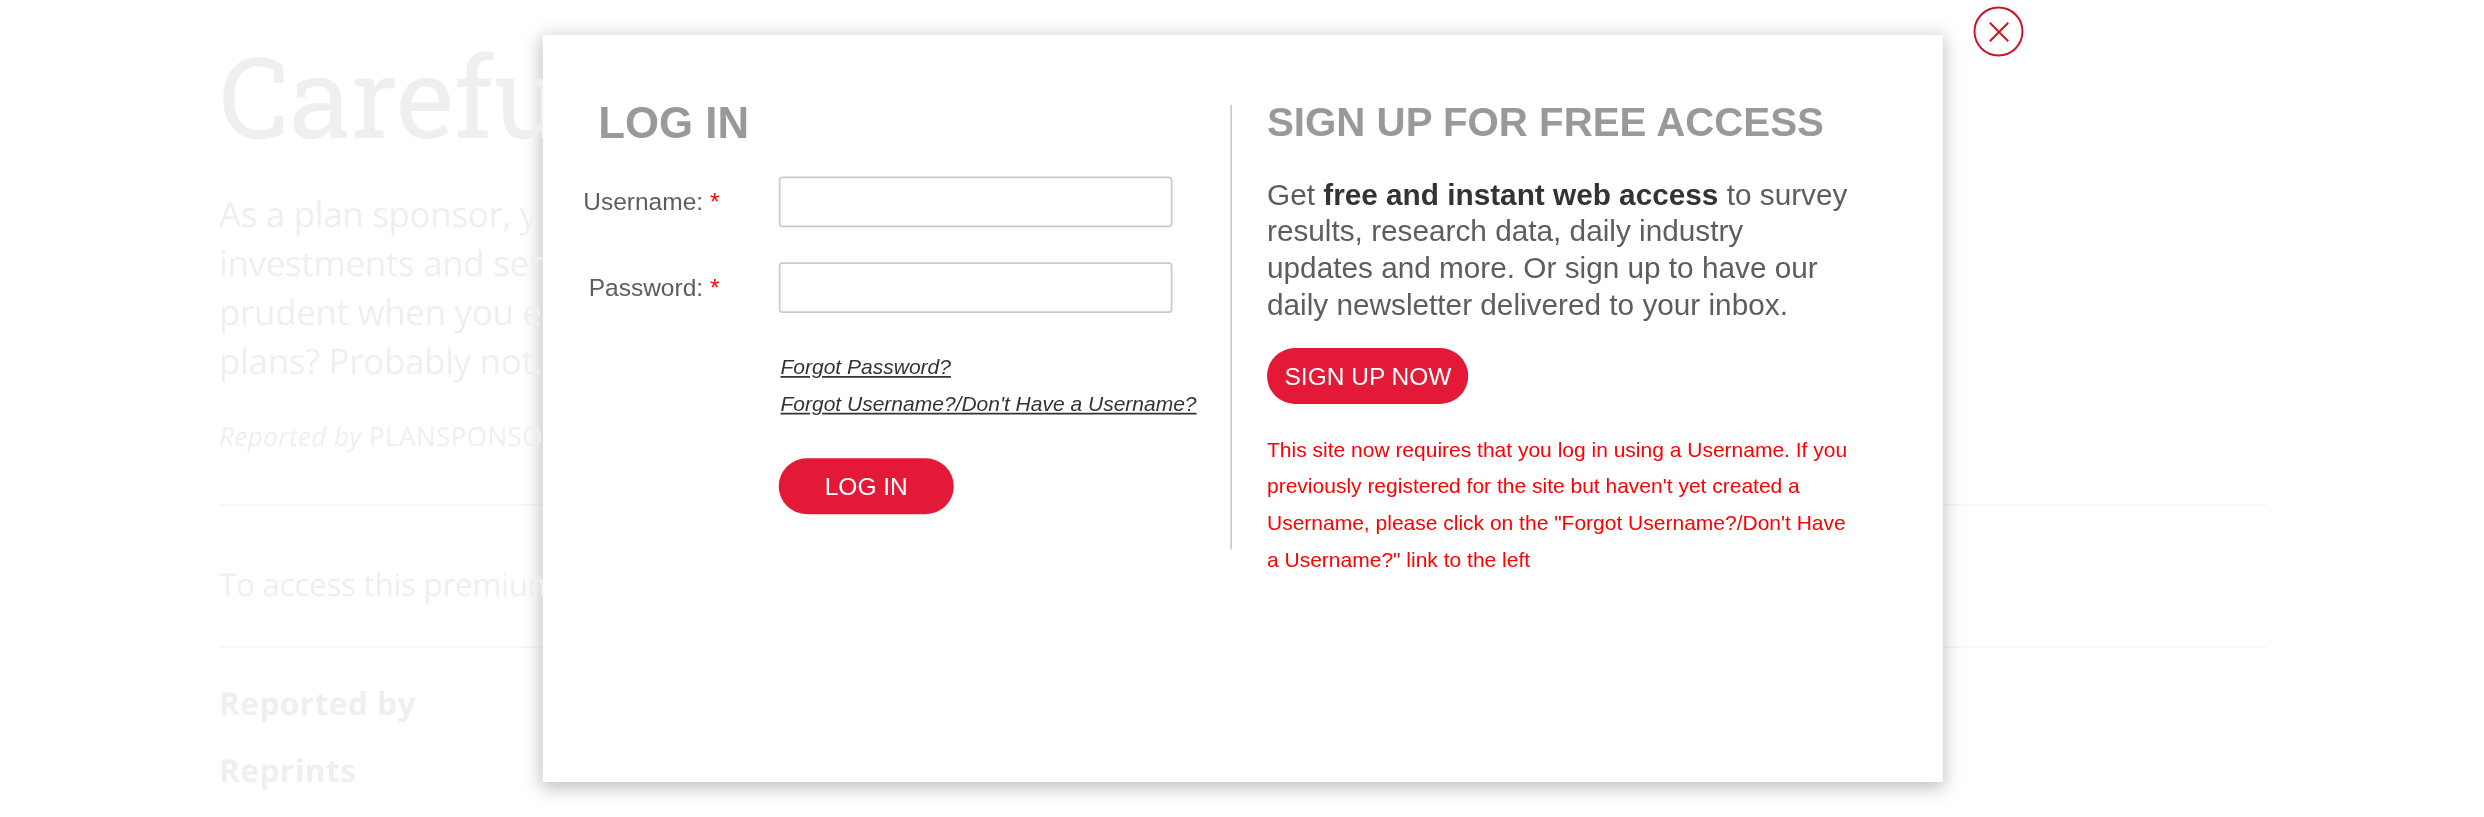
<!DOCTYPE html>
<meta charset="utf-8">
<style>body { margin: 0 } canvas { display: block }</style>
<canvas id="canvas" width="2484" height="817"></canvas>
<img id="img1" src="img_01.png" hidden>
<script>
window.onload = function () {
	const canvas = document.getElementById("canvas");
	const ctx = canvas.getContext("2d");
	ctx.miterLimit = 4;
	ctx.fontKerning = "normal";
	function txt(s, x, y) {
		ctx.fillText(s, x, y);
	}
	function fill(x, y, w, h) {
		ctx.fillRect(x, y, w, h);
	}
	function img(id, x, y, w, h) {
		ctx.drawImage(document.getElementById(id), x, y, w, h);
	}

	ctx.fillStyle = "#FFFFFF";
	fill(0, 0, 2484, 817);
	ctx.fillStyle = "#F7F7F7";
	fill(219, 504, 2047, 2);
	fill(219, 646, 2047, 2);
	ctx.fillStyle = "rgba(0, 0, 0, 0.25)";
	ctx.filter = "blur(9px)";
	ctx.beginPath();
	ctx.rect(541, 37, 1403, 751);
	ctx.fill();
	ctx.filter = "none";
	ctx.fillStyle = "#F9F9F9";
	fill(1942, 35, 1, 747);
	ctx.beginPath();
	ctx.arc(1998.5, 31.5, 24, 0, Math.PI * 2);
	ctx.strokeStyle = "#CC1528";
	ctx.lineWidth = 2;
	ctx.stroke();
	ctx.beginPath();
	ctx.moveTo(1990.5, 23.5);
	ctx.lineTo(2007.5, 40.5);
	ctx.moveTo(2007.5, 23.5);
	ctx.lineTo(1990.5, 40.5);
	ctx.lineCap = "square";
	ctx.stroke();
	ctx.letterSpacing = "-0.25px";
	ctx.font = "112px Roboto Slab";
	ctx.fillStyle = "#EFEFEF";
	txt("Carefu", 219, 138);
	ctx.letterSpacing = "-0.35px";
	ctx.font = "35px Open Sans";
	txt("As a plan sponsor, y", 219, 227);
	txt("investments and ser", 219, 276);
	txt("prudent when you e", 219, 325);
	txt("plans? Probably not.", 219, 374);
	ctx.letterSpacing = "0.3px";
	ctx.font = "italic 26.25px Open Sans";
	txt("Reported by", 219, 446);
	ctx.font = "26.25px Open Sans";
	txt("PLANSPONSO", 369, 446);
	ctx.letterSpacing = "-0.35px";
	ctx.font = "31.5px Open Sans";
	txt("To access this premium", 219, 596);
	ctx.letterSpacing = "0.5px";
	ctx.font = "bold 31.5px Open Sans";
	txt("Reported by", 219, 715);
	txt("Reprints", 219, 782);
	img("img1", 542, 35, 1400, 747);
};
</script>
